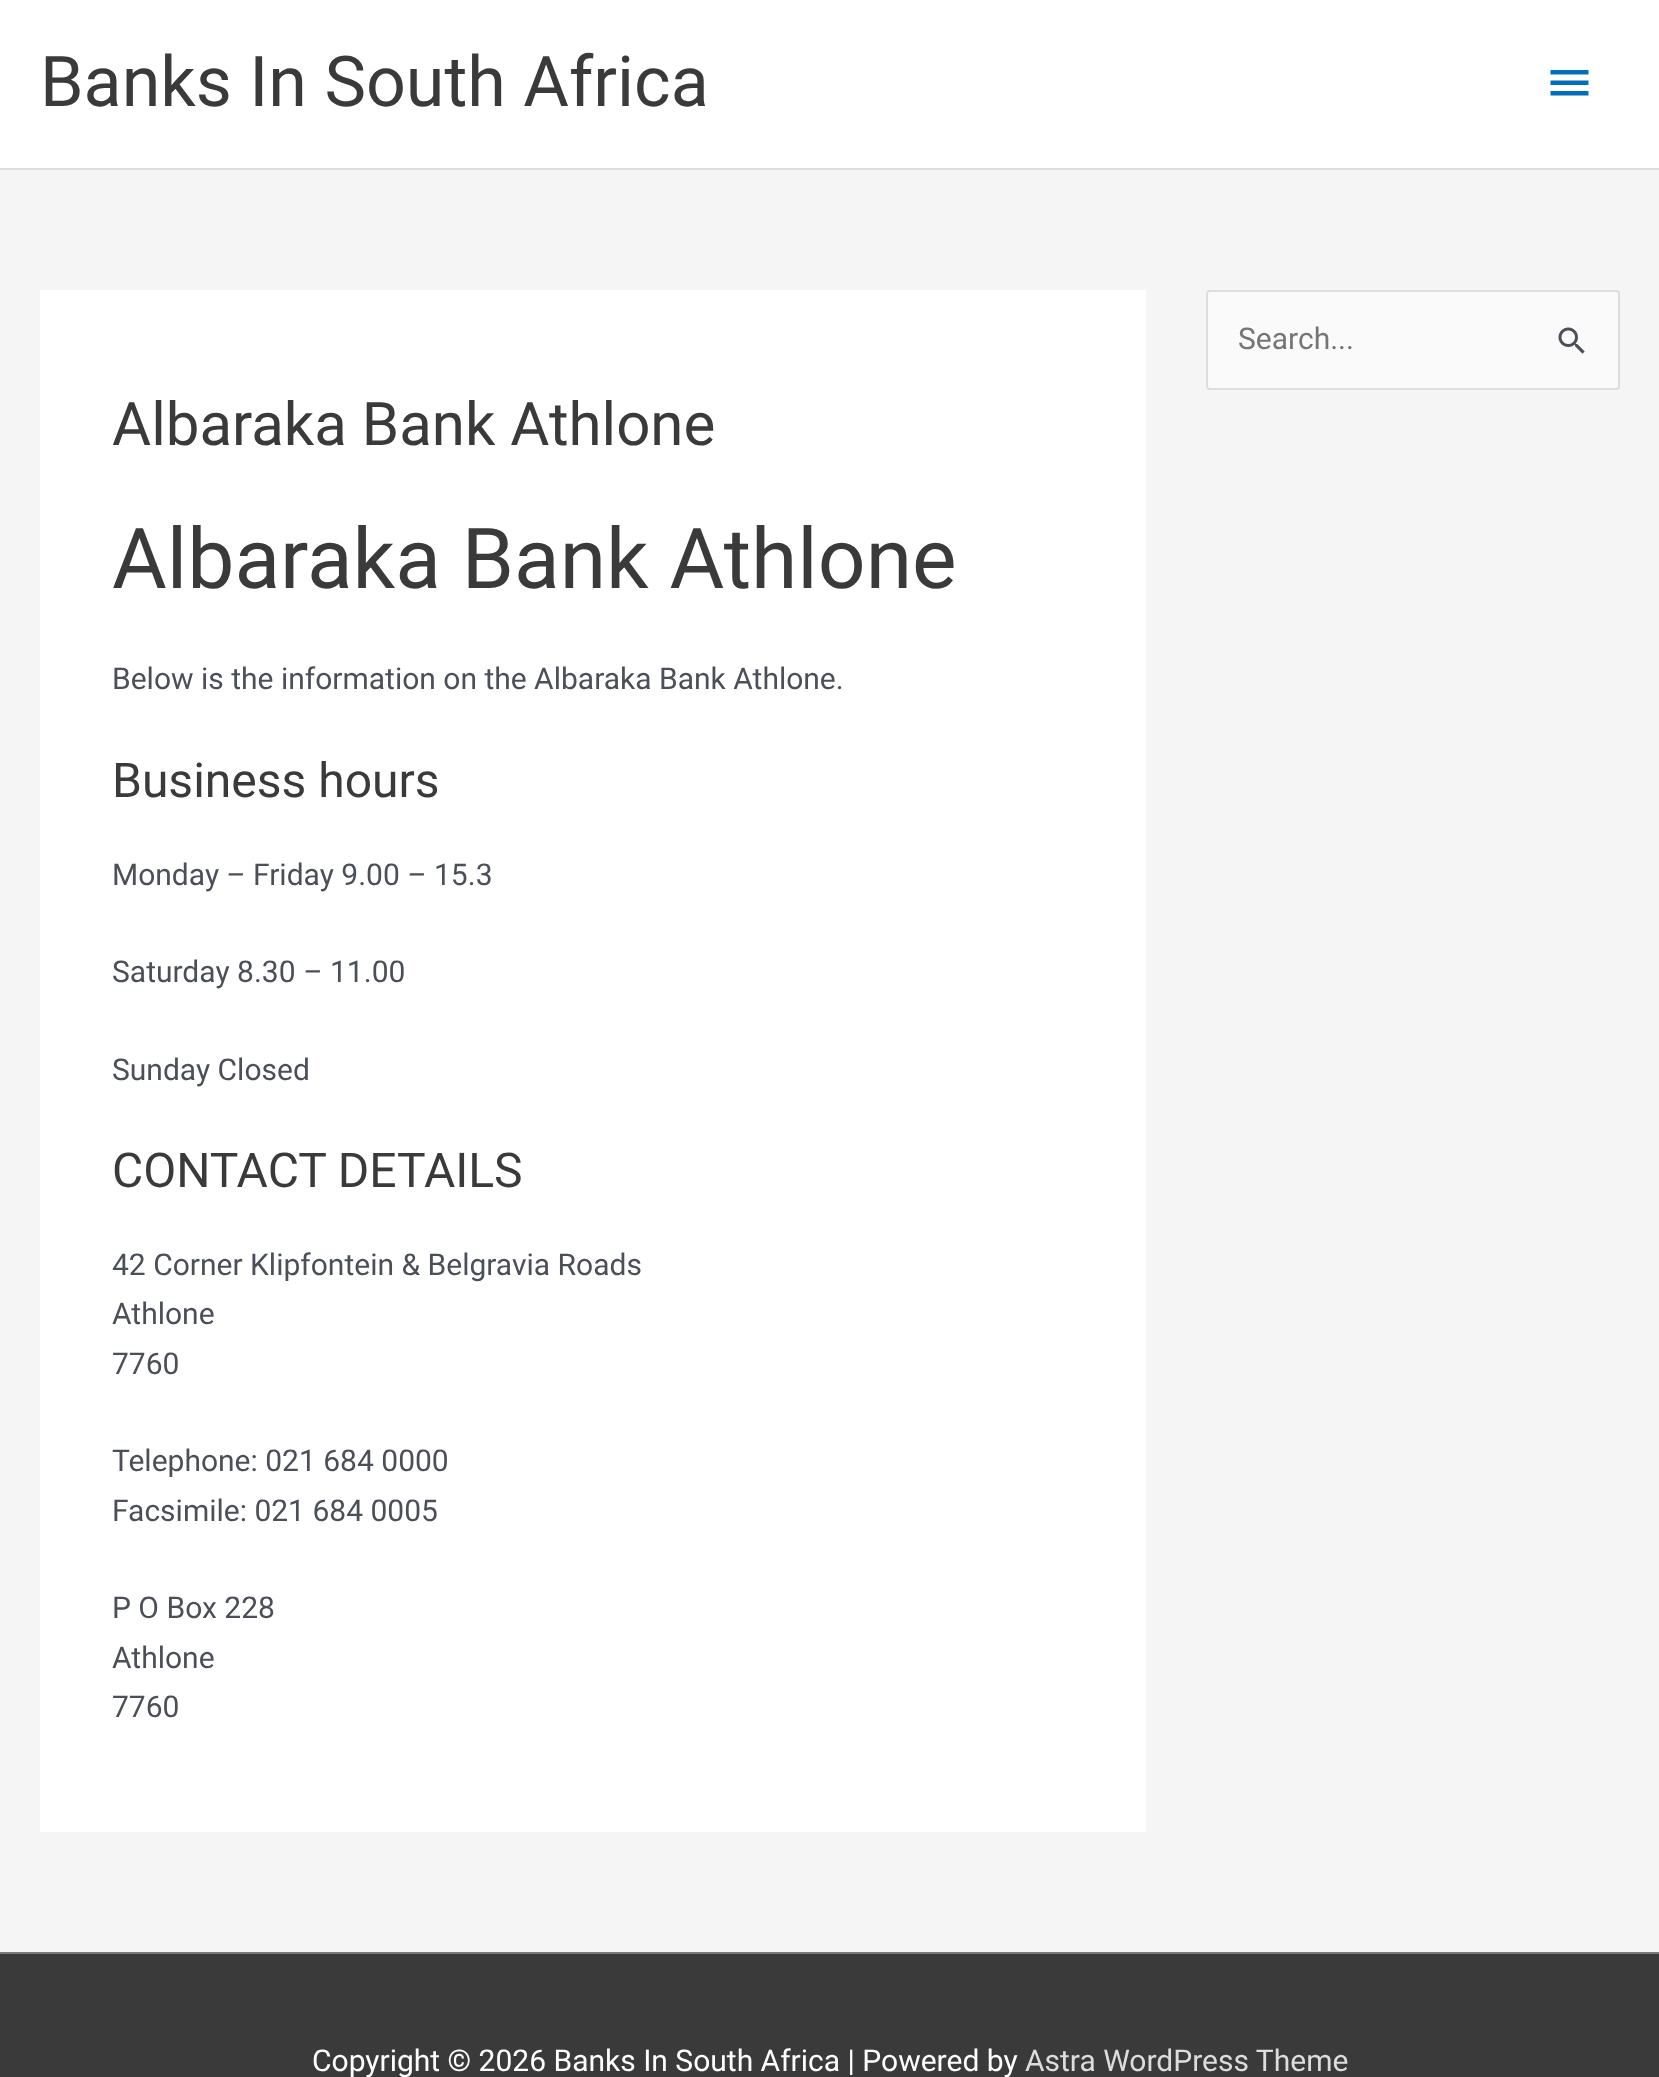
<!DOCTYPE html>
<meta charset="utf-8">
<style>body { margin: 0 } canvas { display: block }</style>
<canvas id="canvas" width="1659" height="2077"></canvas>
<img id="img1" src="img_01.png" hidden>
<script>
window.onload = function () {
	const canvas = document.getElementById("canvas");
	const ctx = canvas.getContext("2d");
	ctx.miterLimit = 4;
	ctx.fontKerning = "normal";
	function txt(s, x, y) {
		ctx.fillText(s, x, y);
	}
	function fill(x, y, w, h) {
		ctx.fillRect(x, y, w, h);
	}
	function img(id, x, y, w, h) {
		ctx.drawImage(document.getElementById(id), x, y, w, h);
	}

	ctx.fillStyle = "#F5F5F5";
	fill(0, 0, 1659, 2077);
	ctx.fillStyle = "#FFFFFF";
	fill(0, 0, 1659, 168);
	ctx.fillStyle = "#DDDDDD";
	fill(0, 168, 1659, 2);
	ctx.fillStyle = "#0170B9";
	ctx.beginPath();
	ctx.moveTo(1550.5, 70);
	ctx.lineTo(1588.5, 70);
	ctx.lineTo(1588.5, 74.5);
	ctx.lineTo(1550.5, 74.5);
	ctx.closePath();
	ctx.moveTo(1550.5, 85);
	ctx.lineTo(1550.5, 80.5);
	ctx.lineTo(1588.5, 80.5);
	ctx.lineTo(1588.5, 85);
	ctx.closePath();
	ctx.moveTo(1550.5, 95.5);
	ctx.lineTo(1550.5, 91);
	ctx.lineTo(1588.5, 91);
	ctx.lineTo(1588.5, 95.5);
	ctx.closePath();
	ctx.fill();
	ctx.fillStyle = "#FAFAFA";
	ctx.beginPath();
	ctx.roundRect(1207, 291, 412, 98, 3);
	ctx.fill();
	ctx.strokeStyle = "#DDDDDD";
	ctx.lineWidth = 2;
	ctx.stroke();
	img("img1", 1558, 327, 27, 27);
	ctx.fillStyle = "#FFFFFF";
	fill(40, 290, 1106, 1542);
	ctx.fillStyle = "#7A7A7A";
	fill(0, 1952, 1659, 2);
	ctx.fillStyle = "#3A3A3A";
	fill(0, 1954, 1659, 123);
	ctx.font = "70px Roboto";
	txt("Banks In South Africa", 40, 106);
	ctx.font = "30px Roboto";
	ctx.fillStyle = "#757575";
	txt("Search...", 1238, 349);
	ctx.font = "60px Roboto";
	ctx.fillStyle = "#3A3A3A";
	txt("Albaraka Bank Athlone", 112, 445);
	ctx.font = "84px Roboto";
	txt("Albaraka Bank Athlone", 112, 588);
	ctx.font = "30px Roboto";
	ctx.fillStyle = "#4B4F58";
	txt("Below is the information on the Albaraka Bank Athlone.", 112, 689);
	ctx.font = "48px Roboto";
	ctx.fillStyle = "#3A3A3A";
	txt("Business hours", 112, 797);
	ctx.font = "30px Roboto";
	ctx.fillStyle = "#4B4F58";
	txt("Monday", 112, 885);
	ctx.font = "italic 30px Roboto";
	txt("–", 226, 885);
	ctx.font = "30px Roboto";
	txt("Friday 9.00", 253, 885);
	ctx.font = "italic 30px Roboto";
	txt("–", 407, 885);
	ctx.font = "30px Roboto";
	txt("15.3", 434, 885);
	txt("Saturday 8.30", 112, 982);
	ctx.font = "italic 30px Roboto";
	txt("–", 303, 982);
	ctx.font = "30px Roboto";
	txt("11.00", 330, 982);
	txt("Sunday Closed", 112, 1080);
	ctx.font = "48px Roboto";
	ctx.fillStyle = "#3A3A3A";
	txt("CONTACT DETAILS", 112, 1187);
	ctx.font = "30px Roboto";
	ctx.fillStyle = "#4B4F58";
	txt("42 Corner Klipfontein & Belgravia Roads", 112, 1275);
	txt("Athlone", 112, 1324);
	txt("7760", 112, 1374);
	txt("Telephone: 021 684 0000", 112, 1471);
	txt("Facsimile: 021 684 0005", 112, 1521);
	txt("P O Box 228", 112, 1618);
	txt("Athlone", 112, 1668);
	txt("7760", 112, 1717);
	ctx.fillStyle = "#FFFFFF";
	txt("Copyright © 2026 Banks In South Africa | Powered by", 312, 2071);
	ctx.fillStyle = "#DDDDDD";
	txt("Astra WordPress Theme", 1025, 2071);
};
</script>
